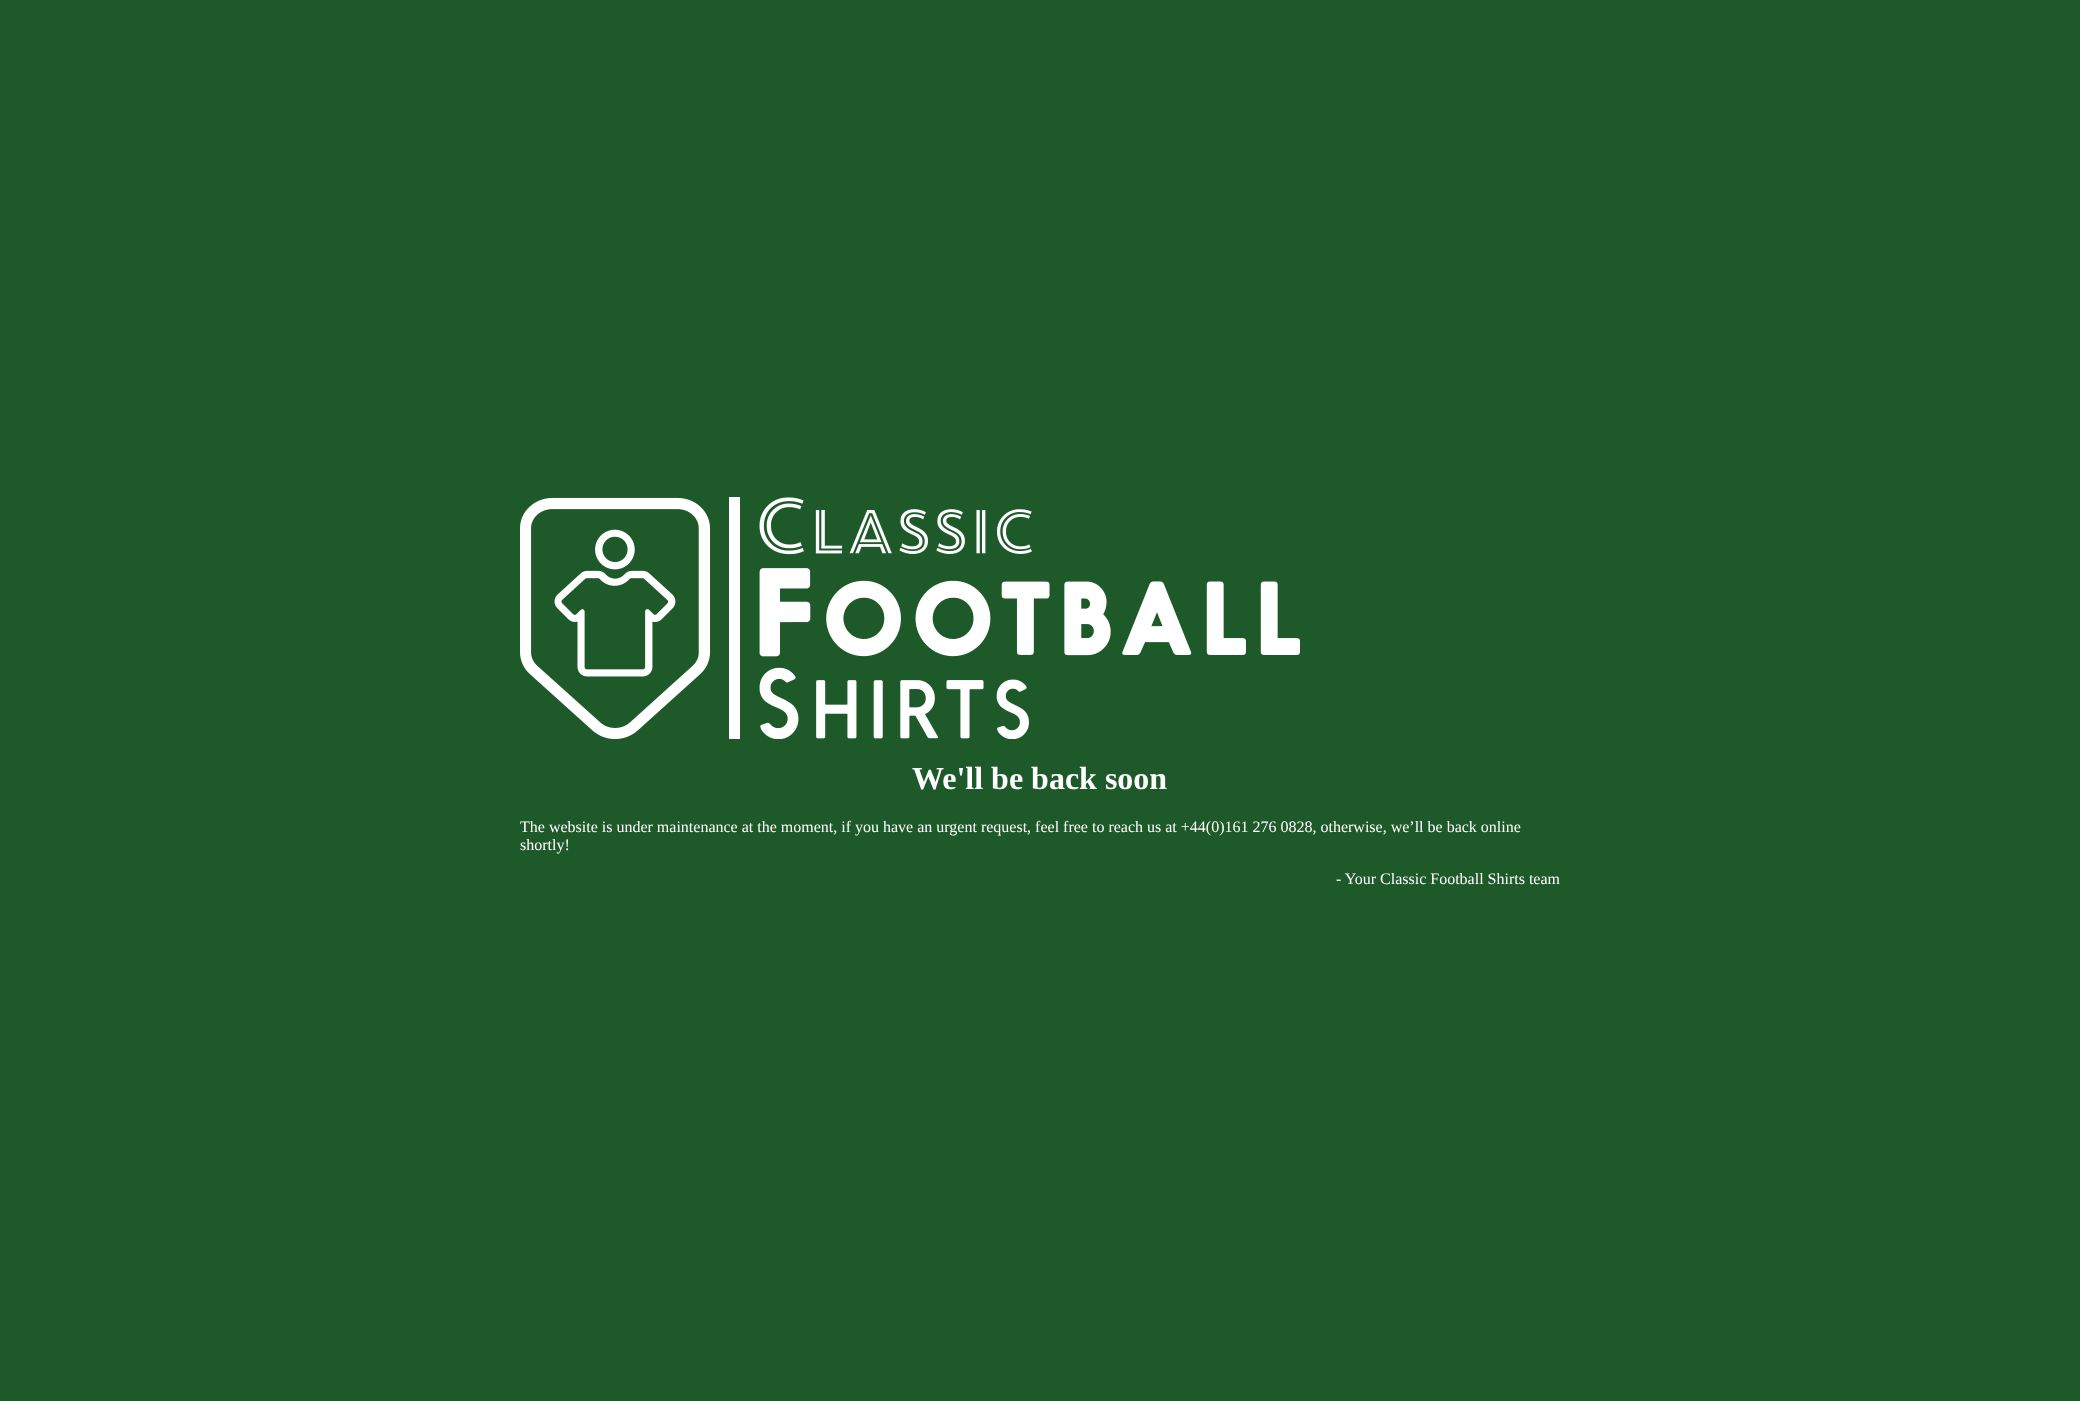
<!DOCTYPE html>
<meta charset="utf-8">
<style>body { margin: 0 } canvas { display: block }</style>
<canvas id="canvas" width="2080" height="1401"></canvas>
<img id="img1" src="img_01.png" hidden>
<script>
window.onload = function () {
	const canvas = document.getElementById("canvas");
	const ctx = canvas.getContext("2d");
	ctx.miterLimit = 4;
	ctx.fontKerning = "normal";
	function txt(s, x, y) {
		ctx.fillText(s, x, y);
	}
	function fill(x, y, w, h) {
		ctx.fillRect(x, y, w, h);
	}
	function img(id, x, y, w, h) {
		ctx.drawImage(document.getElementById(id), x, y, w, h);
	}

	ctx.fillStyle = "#1E5929";
	fill(0, 0, 2080, 1401);
	img("img1", 520, 497, 780, 242);
	ctx.font = "bold 32px Liberation Serif";
	ctx.fillStyle = "#FFFFFF";
	txt("We'll be back soon", 912, 789);
	ctx.font = "16px Liberation Serif";
	txt("The website is under maintenance at the moment, if you have an urgent request, feel free to reach us at +44(0)161 276 0828, otherwise, we’ll be back online", 520, 832);
	txt("shortly!", 520, 850);
	txt("- Your Classic Football Shirts team", 1336, 884);
};
</script>
